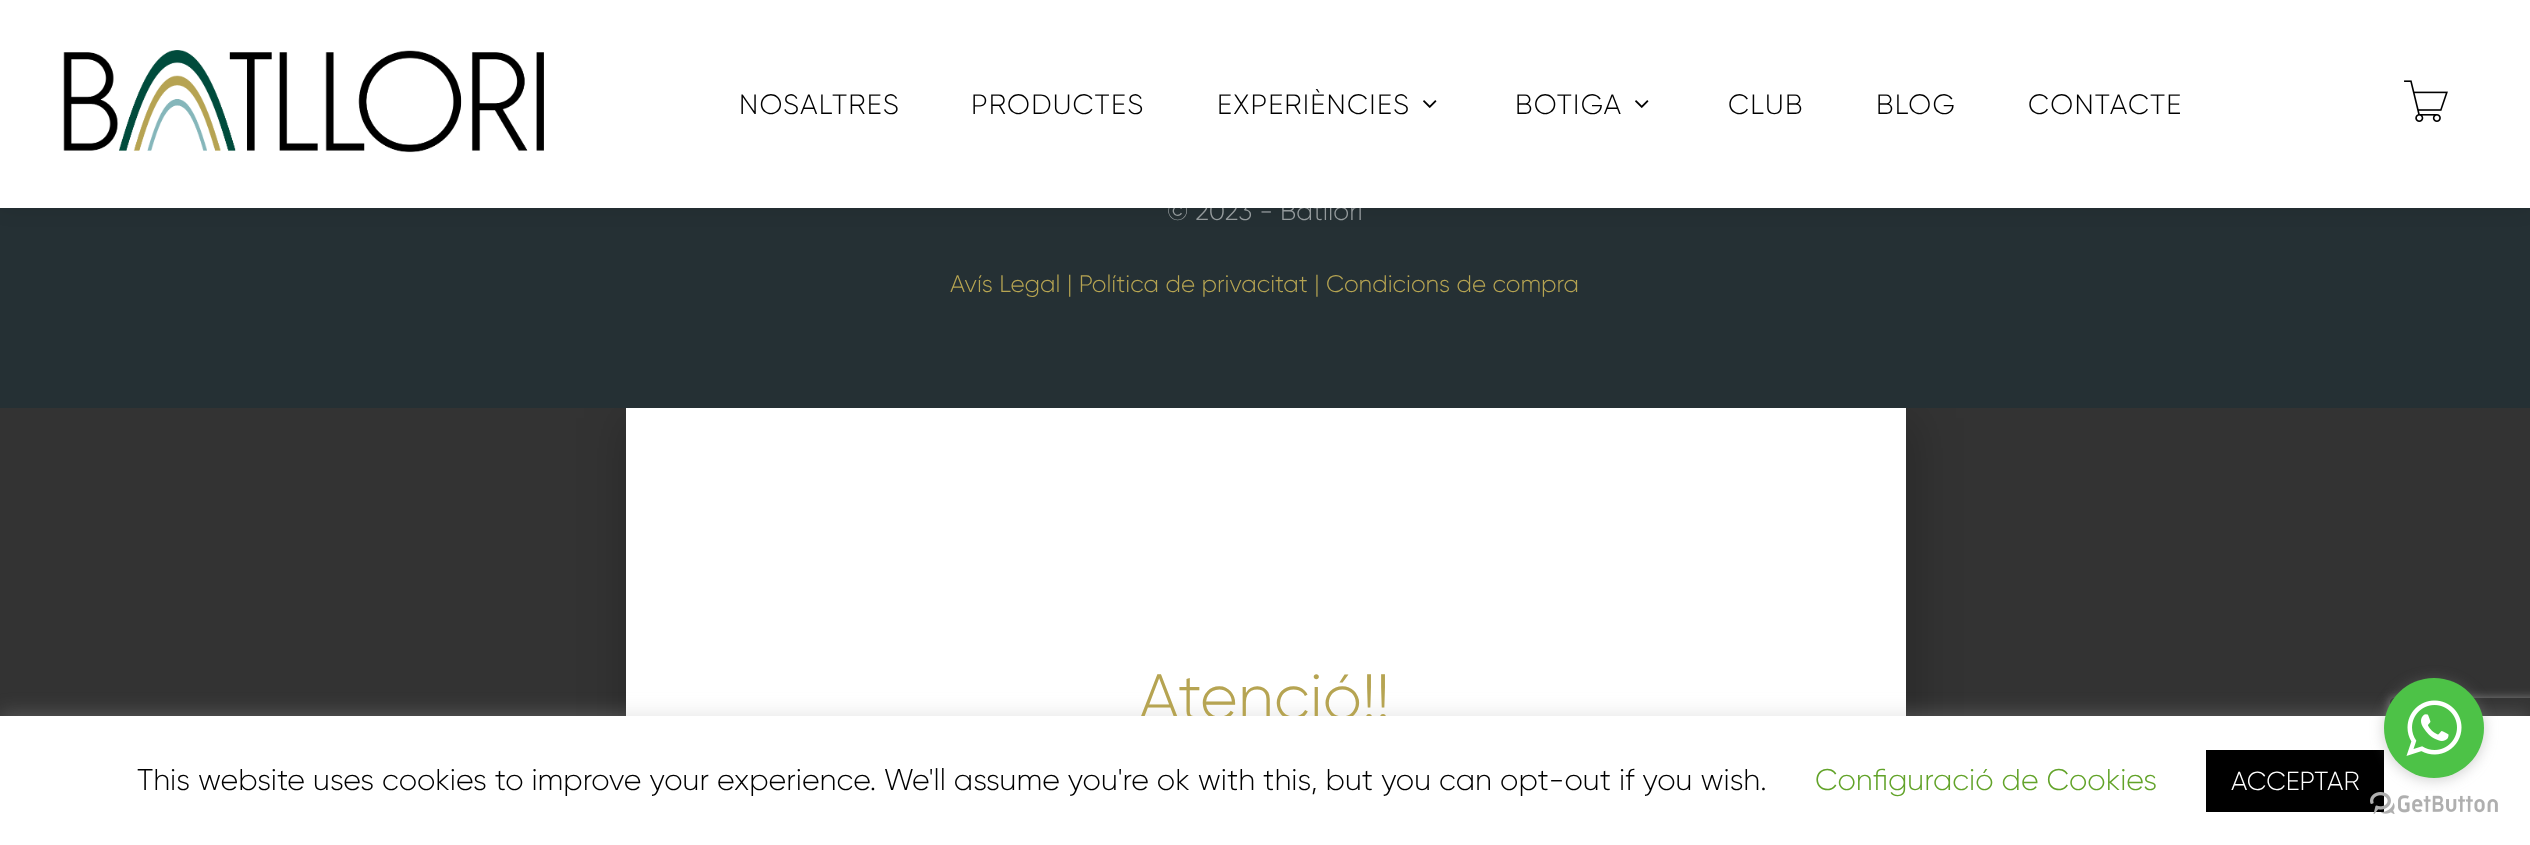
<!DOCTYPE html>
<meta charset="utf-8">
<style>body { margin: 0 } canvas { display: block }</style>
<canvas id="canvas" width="2530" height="845"></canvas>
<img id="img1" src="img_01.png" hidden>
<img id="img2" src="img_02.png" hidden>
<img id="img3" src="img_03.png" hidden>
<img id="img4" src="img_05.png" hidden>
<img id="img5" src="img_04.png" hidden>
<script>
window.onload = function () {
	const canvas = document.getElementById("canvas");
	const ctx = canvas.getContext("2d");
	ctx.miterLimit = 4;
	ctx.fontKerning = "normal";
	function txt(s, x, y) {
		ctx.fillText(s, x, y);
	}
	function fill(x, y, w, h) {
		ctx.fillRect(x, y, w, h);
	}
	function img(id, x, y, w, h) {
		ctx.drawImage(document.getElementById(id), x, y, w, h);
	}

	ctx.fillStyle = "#333333";
	fill(0, 0, 2530, 845);
	ctx.fillStyle = "rgba(0, 0, 0, 0.2)";
	ctx.filter = "blur(23px)";
	ctx.beginPath();
	ctx.rect(624, 418, 1292, 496);
	ctx.fill();
	ctx.filter = "none";
	ctx.fillStyle = "#253034";
	fill(0, 208, 2530, 200);
	ctx.fillStyle = "rgba(0, 0, 0, 0.1)";
	ctx.filter = "blur(10px)";
	ctx.beginPath();
	ctx.rect(0, 0, 2530, 208);
	ctx.fill();
	ctx.filter = "none";
	ctx.fillStyle = "#FFFFFF";
	fill(626, 408, 1280, 308);
	ctx.fillStyle = "rgba(172, 171, 171, 0.3)";
	ctx.filter = "blur(10px)";
	ctx.beginPath();
	ctx.rect(0, 714, 2530, 130);
	ctx.fill();
	ctx.filter = "none";
	ctx.save();
	ctx.beginPath();
	ctx.moveTo(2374, 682);
	ctx.lineTo(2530, 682);
	ctx.lineTo(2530, 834);
	ctx.lineTo(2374, 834);
	ctx.closePath();
	ctx.moveTo(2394, 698);
	ctx.lineTo(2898, 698);
	ctx.bezierCurveTo(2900, 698, 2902, 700, 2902, 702);
	ctx.lineTo(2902, 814);
	ctx.bezierCurveTo(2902, 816, 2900, 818, 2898, 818);
	ctx.lineTo(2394, 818);
	ctx.bezierCurveTo(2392, 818, 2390, 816, 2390, 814);
	ctx.lineTo(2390, 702);
	ctx.bezierCurveTo(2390, 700, 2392, 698, 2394, 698);
	ctx.closePath();
	ctx.clip("evenodd");
	ctx.fillStyle = "#808080";
	ctx.filter = "blur(5px)";
	ctx.beginPath();
	ctx.roundRect(2390, 698, 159, 120, 4);
	ctx.fill();
	ctx.filter = "none";
	ctx.restore();
	ctx.font = "300 26px Gilroy";
	ctx.fillStyle = "#949A9C";
	txt("© 2023 - Batllori", 1167, 220);
	ctx.fillStyle = "#FFFFFF";
	fill(0, 0, 2530, 208);
	img("img1", 63, 50, 481, 103);
	ctx.letterSpacing = "1.25px";
	ctx.font = "300 28px Gilroy";
	ctx.fillStyle = "#000000";
	txt("CONTACTE", 2028, 114);
	txt("BLOG", 1876, 114);
	txt("CLUB", 1728, 114);
	img("img2", 1635, 100, 14, 8);
	txt("BOTIGA", 1515, 114);
	img("img2", 1423, 100, 14, 8);
	txt("EXPERIÈNCIES", 1217, 114);
	txt("PRODUCTES", 971, 114);
	txt("NOSALTRES", 739, 114);
	img("img3", 2404, 80, 44, 42);
	ctx.letterSpacing = "0px";
	ctx.font = "300 24px Gilroy";
	ctx.fillStyle = "#B6A452";
	txt("Avís Legal | Política de privacitat | Condicions de compra", 950, 292);
	ctx.font = "300 64px Gilroy";
	txt("Atenció!!", 1139, 719);
	ctx.fillStyle = "#FFFFFF";
	fill(0, 716, 2530, 129);
	ctx.font = "300 30px Gilroy";
	ctx.fillStyle = "#000000";
	txt("This website uses cookies to improve your experience. We'll assume you're ok with this, but you can opt-out if you wish.", 137, 790);
	ctx.fillStyle = "#62A329";
	txt("Configuració de Cookies", 1815, 790);
	ctx.fillStyle = "#000000";
	fill(2206, 750, 178, 62);
	img("img4", 2370, 792, 128, 22);
	ctx.fillStyle = "rgba(136, 136, 136, 0.4)";
	ctx.filter = "blur(7px)";
	ctx.beginPath();
	ctx.roundRect(2384, 680, 100, 100, 50);
	ctx.fill();
	ctx.filter = "none";
	ctx.fillStyle = "#4DC247";
	ctx.beginPath();
	ctx.arc(2434, 728, 50, 0, Math.PI * 2);
	ctx.fill();
	img("img5", 2406, 700, 56, 56);
	ctx.font = "300 26px Gilroy";
	ctx.fillStyle = "#FFFFFF";
	txt("ACCEPTAR", 2231, 790);
};
</script>
